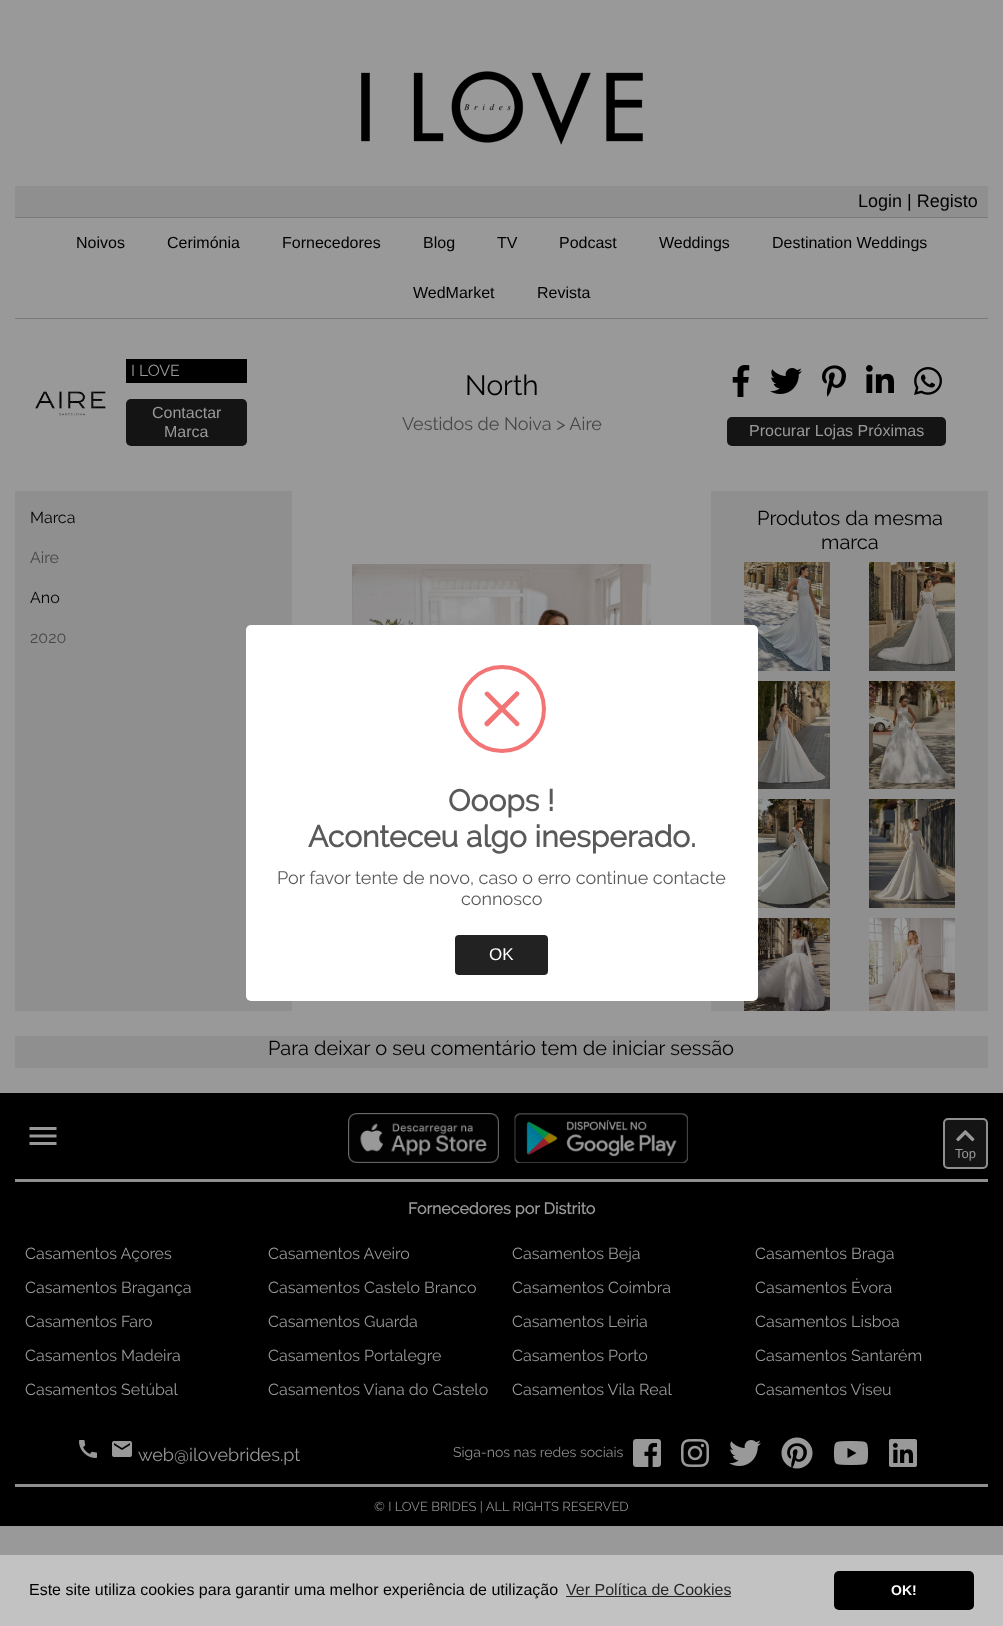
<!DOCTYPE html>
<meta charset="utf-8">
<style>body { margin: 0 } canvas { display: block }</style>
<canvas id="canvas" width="1003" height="1626"></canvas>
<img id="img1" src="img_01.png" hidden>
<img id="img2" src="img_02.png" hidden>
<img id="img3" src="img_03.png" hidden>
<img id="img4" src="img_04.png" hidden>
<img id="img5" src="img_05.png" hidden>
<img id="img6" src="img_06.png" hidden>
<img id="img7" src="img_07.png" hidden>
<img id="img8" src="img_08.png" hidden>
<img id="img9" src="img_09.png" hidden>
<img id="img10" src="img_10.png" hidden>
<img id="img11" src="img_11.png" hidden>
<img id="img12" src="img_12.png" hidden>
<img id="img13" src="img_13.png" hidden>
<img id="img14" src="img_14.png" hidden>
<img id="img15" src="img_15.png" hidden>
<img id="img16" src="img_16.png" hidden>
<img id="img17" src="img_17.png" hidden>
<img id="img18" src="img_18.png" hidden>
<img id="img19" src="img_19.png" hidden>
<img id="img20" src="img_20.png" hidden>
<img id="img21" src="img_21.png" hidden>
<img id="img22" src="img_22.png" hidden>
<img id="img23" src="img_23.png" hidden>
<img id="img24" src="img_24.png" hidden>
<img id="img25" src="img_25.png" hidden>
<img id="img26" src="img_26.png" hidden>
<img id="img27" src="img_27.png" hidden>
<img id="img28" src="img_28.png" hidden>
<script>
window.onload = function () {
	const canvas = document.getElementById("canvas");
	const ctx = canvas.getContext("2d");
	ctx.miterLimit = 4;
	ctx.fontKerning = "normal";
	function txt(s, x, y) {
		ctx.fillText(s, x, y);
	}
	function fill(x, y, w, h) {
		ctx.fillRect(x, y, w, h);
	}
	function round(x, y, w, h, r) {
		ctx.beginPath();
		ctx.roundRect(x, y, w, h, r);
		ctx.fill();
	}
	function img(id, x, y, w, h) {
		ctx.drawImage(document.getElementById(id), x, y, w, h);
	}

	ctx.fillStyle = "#999999";
	fill(0, 0, 1003, 1626);
	img("img1", 361, 71, 282, 74);
	ctx.fillStyle = "#8F8F8F";
	fill(15, 186, 973, 31);
	ctx.fillStyle = "#7A7A7A";
	fill(15, 217, 973, 1);
	fill(15, 318, 973, 1);
	img("img2", 35, 391, 71, 25);
	ctx.fillStyle = "#000000";
	fill(126, 359, 121, 24);
	ctx.fillStyle = "#141414";
	round(126, 399, 121, 47, 5);
	img("img3", 732, 365, 18, 32);
	img("img4", 770, 368, 32, 26);
	img("img5", 822, 365, 24, 32);
	img("img6", 866, 365, 28, 28);
	img("img7", 914, 367, 28, 28);
	round(727, 417, 219, 29, 5);
	ctx.fillStyle = "#8F8F8F";
	fill(15, 491, 277, 520);
	img("img8", 352, 564, 299, 61);
	fill(711, 491, 277, 520);
	img("img9", 744, 562, 86, 109);
	img("img10", 869, 562, 86, 109);
	img("img11", 758, 681, 72, 108);
	img("img12", 869, 681, 86, 108);
	img("img13", 758, 799, 72, 109);
	img("img14", 869, 799, 86, 109);
	img("img15", 744, 918, 86, 93);
	img("img16", 869, 918, 86, 93);
	fill(15, 1036, 973, 32);
	ctx.fillStyle = "#000000";
	fill(0, 1093, 1003, 433);
	img("img17", 29, 1127, 28, 18);
	img("img18", 348, 1113, 151, 50);
	img("img19", 514, 1113, 174, 50);
	ctx.fillStyle = "#141414";
	ctx.beginPath();
	ctx.roundRect(944, 1119, 43, 49, 4);
	ctx.fill();
	ctx.strokeStyle = "#8F8F8F";
	ctx.lineWidth = 2;
	ctx.stroke();
	img("img20", 956, 1130, 19, 12);
	ctx.fillStyle = "#8F8F8F";
	fill(15, 1179, 973, 3);
	img("img21", 79, 1440, 18, 18);
	img("img22", 112, 1441, 20, 16);
	img("img23", 633, 1439, 28, 28);
	img("img24", 681, 1439, 28, 28);
	img("img25", 729, 1440, 32, 26);
	img("img26", 781, 1437, 32, 32);
	img("img27", 833, 1441, 36, 24);
	img("img28", 889, 1439, 28, 28);
	fill(15, 1484, 973, 3);
	ctx.fillStyle = "#FFFFFF";
	round(246, 625, 512, 376, 5);
	ctx.beginPath();
	ctx.arc(502, 709, 42, 0, Math.PI * 2);
	ctx.strokeStyle = "#F27474";
	ctx.lineWidth = 4;
	ctx.stroke();
	ctx.fillStyle = "#F27474";
	ctx.beginPath();
	ctx.moveTo(488.5, 692);
	ctx.lineTo(519, 722.5);
	ctx.bezierCurveTo(520.5, 724.5, 518, 727, 516, 726);
	ctx.lineTo(485, 695);
	ctx.lineTo(484.5, 693.5);
	ctx.bezierCurveTo(485, 692, 487, 690.5, 488.5, 692);
	ctx.closePath();
	ctx.fill();
	ctx.beginPath();
	ctx.moveTo(485, 722);
	ctx.lineTo(516, 691.5);
	ctx.bezierCurveTo(518, 690.5, 520.5, 693.5, 519, 695);
	ctx.lineTo(488.5, 726);
	ctx.lineTo(487, 726.5);
	ctx.bezierCurveTo(485, 726, 483.5, 723.5, 485, 722);
	ctx.closePath();
	ctx.fill();
	ctx.fillStyle = "#222222";
	round(455, 935, 93, 40, 4);
	ctx.fillStyle = "#C2C2C2";
	fill(0, 1555, 1003, 71);
	ctx.fillStyle = "#272727";
	fill(566, 1596, 165, 1);
	ctx.fillStyle = "#000000";
	round(834, 1571, 140, 39, 5);
	ctx.font = "18px Liberation Sans";
	txt("Login | Registo", 858, 207);
	ctx.font = "16px Liberation Sans";
	txt("Noivos", 76, 248);
	txt("Cerimónia", 167, 248);
	txt("Fornecedores", 282, 248);
	txt("Blog", 423, 248);
	txt("TV", 497, 248);
	txt("Podcast", 559, 248);
	txt("Weddings", 659, 248);
	txt("Destination Weddings", 772, 248);
	txt("WedMarket", 413, 298);
	txt("Revista", 537, 298);
	ctx.font = "16px Raleway";
	ctx.fillStyle = "#999999";
	txt("I LOVE", 131, 376);
	ctx.font = "16px Liberation Sans";
	txt("Contactar", 152, 418);
	txt("Marca", 164, 437);
	ctx.font = "28px Raleway";
	ctx.fillStyle = "#000000";
	txt("North", 465, 395);
	ctx.font = "18px Raleway";
	ctx.fillStyle = "#474747";
	txt("Vestidos de Noiva > Aire", 402, 430);
	ctx.font = "16px Liberation Sans";
	ctx.fillStyle = "#999999";
	txt("Procurar Lojas Próximas", 749, 436);
	ctx.font = "16px Raleway";
	ctx.fillStyle = "#000000";
	txt("Marca", 30, 523);
	ctx.fillStyle = "#474747";
	txt("Aire", 30, 563);
	ctx.fillStyle = "#000000";
	txt("Ano", 30, 603);
	ctx.fillStyle = "#474747";
	txt("2020", 30, 643);
	ctx.font = "20px Raleway";
	ctx.fillStyle = "#000000";
	txt("Produtos da mesma", 757, 525);
	txt("marca", 821, 549);
	txt("Para deixar o seu comentário tem de iniciar sessão", 268, 1055);
	ctx.font = "13px Liberation Sans";
	ctx.fillStyle = "#999999";
	txt("Top", 955, 1158);
	ctx.font = "bold 16px Raleway";
	txt("Fornecedores por Distrito", 408, 1214);
	ctx.font = "16px Raleway";
	txt("Casamentos Açores", 25, 1259);
	txt("Casamentos Aveiro", 268, 1259);
	txt("Casamentos Beja", 512, 1259);
	txt("Casamentos Braga", 755, 1259);
	txt("Casamentos Bragança", 25, 1293);
	txt("Casamentos Castelo Branco", 268, 1293);
	txt("Casamentos Coimbra", 512, 1293);
	txt("Casamentos Évora", 755, 1293);
	txt("Casamentos Faro", 25, 1327);
	txt("Casamentos Guarda", 268, 1327);
	txt("Casamentos Leiria", 512, 1327);
	txt("Casamentos Lisboa", 755, 1327);
	txt("Casamentos Madeira", 25, 1361);
	txt("Casamentos Portalegre", 268, 1361);
	txt("Casamentos Porto", 512, 1361);
	txt("Casamentos Santarém", 755, 1361);
	txt("Casamentos Setúbal", 25, 1395);
	txt("Casamentos Viana do Castelo", 268, 1395);
	txt("Casamentos Vila Real", 512, 1395);
	txt("Casamentos Viseu", 755, 1395);
	ctx.font = "18px Raleway";
	txt("web@ilovebrides.pt", 138, 1461);
	ctx.font = "14px Raleway";
	ctx.fillStyle = "#8E8E8E";
	txt("Siga-nos nas redes sociais", 453, 1457);
	ctx.font = "13px Raleway";
	txt("© I LOVE BRIDES | ALL RIGHTS RESERVED", 374, 1511);
	ctx.font = "bold 30px Raleway";
	ctx.fillStyle = "#595959";
	txt("Ooops !", 448, 811);
	txt("Aconteceu algo inesperado.", 308, 847);
	ctx.font = "18px Raleway";
	txt("Por favor tente de novo, caso o erro continue contacte", 277, 884);
	txt("connosco", 461, 905);
	ctx.font = "17px Liberation Sans";
	ctx.fillStyle = "#FFFFFF";
	txt("OK", 489, 960);
	ctx.font = "16px Liberation Sans";
	ctx.fillStyle = "#000000";
	txt("Este site utiliza cookies para garantir uma melhor experiência de utilização", 29, 1595);
	ctx.fillStyle = "#272727";
	txt("Ver Política de Cookies", 566, 1595);
	ctx.font = "bold 14px Liberation Sans";
	ctx.fillStyle = "#FFFFFF";
	txt("OK!", 891, 1595);
};
</script>
